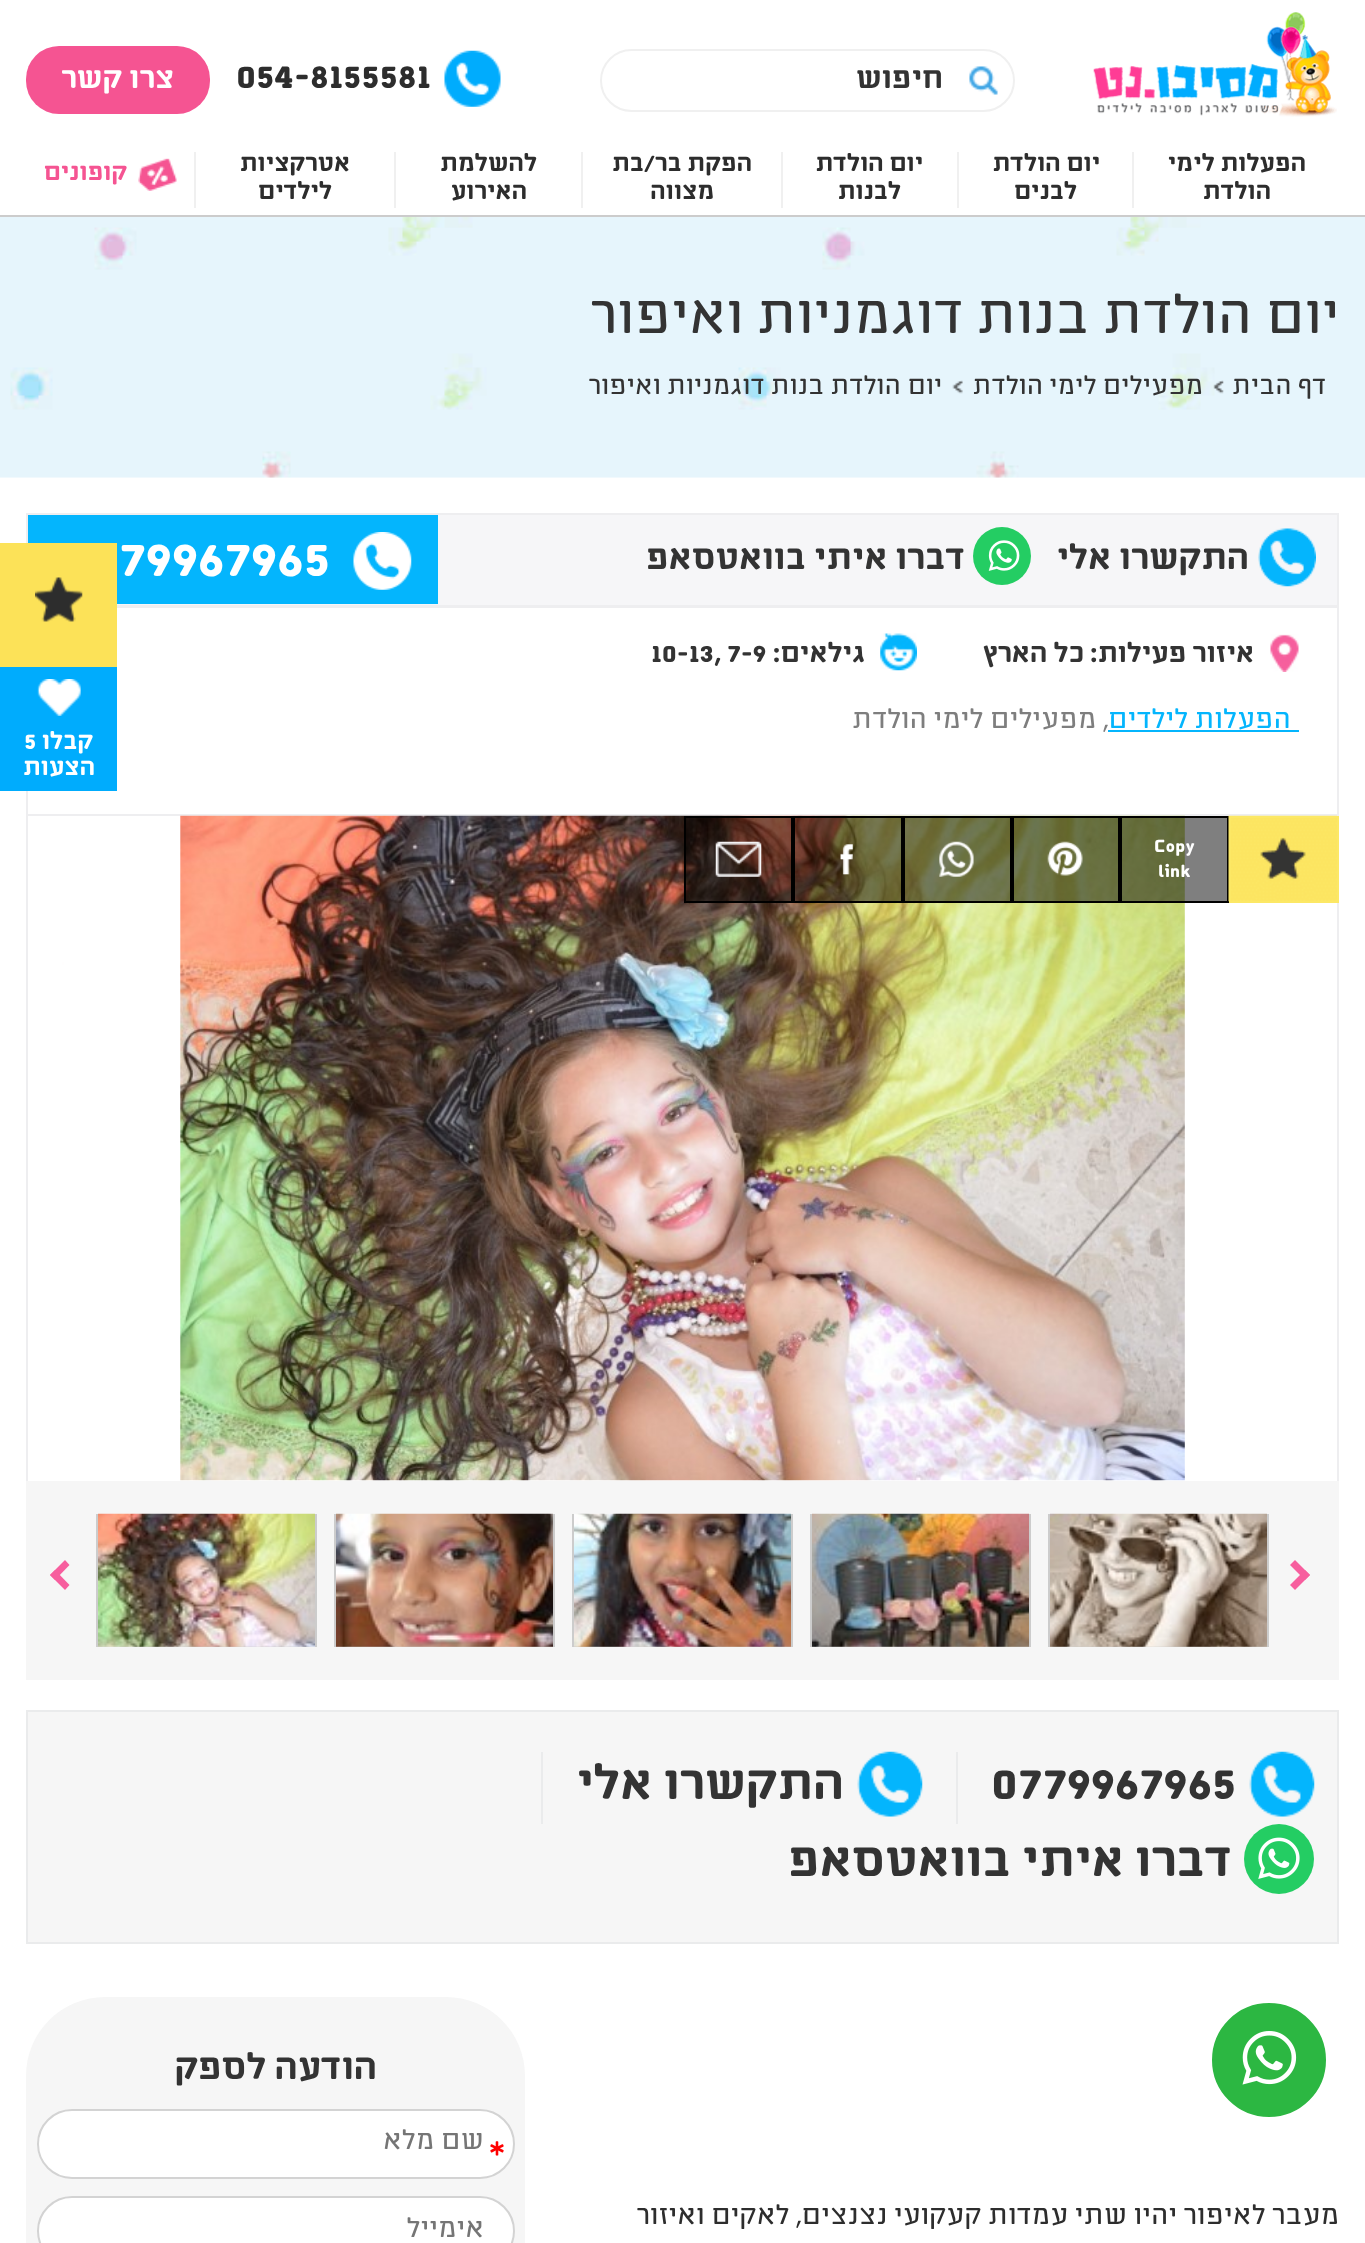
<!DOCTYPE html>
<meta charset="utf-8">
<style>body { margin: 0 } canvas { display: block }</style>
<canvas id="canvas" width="1365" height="2243"></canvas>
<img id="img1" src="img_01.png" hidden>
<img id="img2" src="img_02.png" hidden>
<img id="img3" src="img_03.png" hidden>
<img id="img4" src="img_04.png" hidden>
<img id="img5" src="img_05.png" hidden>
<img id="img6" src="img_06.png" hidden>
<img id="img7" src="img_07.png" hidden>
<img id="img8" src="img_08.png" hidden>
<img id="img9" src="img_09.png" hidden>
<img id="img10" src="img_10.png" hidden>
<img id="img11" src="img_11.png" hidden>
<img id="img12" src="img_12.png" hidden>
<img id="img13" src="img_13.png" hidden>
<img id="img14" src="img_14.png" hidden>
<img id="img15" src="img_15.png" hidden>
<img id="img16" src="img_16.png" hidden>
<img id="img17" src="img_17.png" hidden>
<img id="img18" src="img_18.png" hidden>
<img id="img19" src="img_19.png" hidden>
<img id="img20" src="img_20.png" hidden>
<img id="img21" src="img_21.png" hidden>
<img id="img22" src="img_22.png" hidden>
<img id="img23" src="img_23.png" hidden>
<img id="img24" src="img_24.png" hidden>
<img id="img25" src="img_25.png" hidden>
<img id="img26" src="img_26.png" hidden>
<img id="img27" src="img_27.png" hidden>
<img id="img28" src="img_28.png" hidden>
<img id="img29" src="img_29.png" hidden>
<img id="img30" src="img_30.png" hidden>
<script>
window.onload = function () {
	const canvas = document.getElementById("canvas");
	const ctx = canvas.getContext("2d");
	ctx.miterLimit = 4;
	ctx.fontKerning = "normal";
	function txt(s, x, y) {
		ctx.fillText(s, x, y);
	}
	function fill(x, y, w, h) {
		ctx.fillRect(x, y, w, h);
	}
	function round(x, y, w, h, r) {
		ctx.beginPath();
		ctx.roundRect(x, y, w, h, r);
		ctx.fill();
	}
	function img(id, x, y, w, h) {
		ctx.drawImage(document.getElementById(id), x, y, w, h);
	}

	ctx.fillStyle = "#FFFFFF";
	fill(0, 0, 1365, 2243);
	ctx.fillStyle = "#CCCCCC";
	fill(0, 215, 1365, 2);
	img("img1", 1093, 12, 244, 105);
	img("img2", 444, 50, 57, 57);
	ctx.fillStyle = "#F55492";
	round(26, 46, 184, 68, 33);
	ctx.beginPath();
	ctx.roundRect(601, 50, 413, 61, 30.5);
	ctx.strokeStyle = "#F0F0F0";
	ctx.lineWidth = 2;
	ctx.stroke();
	img("img3", 969, 66, 29, 29);
	ctx.fillStyle = "#F0F0F0";
	fill(1132, 152, 2, 56);
	fill(957, 152, 2, 56);
	fill(781, 152, 2, 56);
	fill(581, 152, 2, 56);
	fill(394, 152, 2, 56);
	fill(194, 152, 2, 56);
	img("img4", 138, 158, 39, 33);
	img("img5", 0, 217, 1365, 261);
	img("img6", 1213, 380, 11, 14);
	img("img7", 952, 380, 11, 14);
	img("img8", 0, 477, 1365, 1305);
	ctx.fillStyle = "#FFFFFF";
	fill(64, 960, 383, 822);
	ctx.fillStyle = "#F6F6F8";
	fill(117, 515, 1220, 90);
	ctx.strokeStyle = "#EEEEF0";
	ctx.strokeRect(27, 607, 1311, 208);
	ctx.strokeRect(27, 514, 1311, 92);
	img("img9", 1258, 528, 58, 59);
	ctx.fillStyle = "#24CD63";
	ctx.beginPath();
	ctx.arc(1002, 556, 29, 0, Math.PI * 2);
	ctx.fill();
	img("img10", 988, 540, 32, 31);
	ctx.fillStyle = "#04B5FD";
	fill(28, 515, 410, 89);
	img("img11", 353, 532, 59, 58);
	img("img12", 1270, 634, 29, 38);
	img("img13", 880, 633, 37, 38);
	fill(1108, 730, 191, 2);
	ctx.fillStyle = "#EEEEF0";
	fill(1337, 903, 2, 578);
	fill(26, 816, 2, 665);
	img("img14", 180, 815, 1005, 666);
	ctx.fillStyle = "#F6F6F6";
	fill(26, 1481, 1313, 199);
	ctx.fillStyle = "#F75E9E";
	ctx.beginPath();
	ctx.moveTo(1295, 1560);
	ctx.lineTo(1310, 1575);
	ctx.lineTo(1305, 1580);
	ctx.lineTo(1290, 1565);
	ctx.closePath();
	ctx.fill();
	ctx.beginPath();
	ctx.moveTo(1305, 1570);
	ctx.lineTo(1310, 1575);
	ctx.lineTo(1295, 1590);
	ctx.lineTo(1290, 1585);
	ctx.closePath();
	ctx.fill();
	ctx.strokeStyle = "#CCCCCC";
	ctx.strokeRect(1049, 1515, 219, 131);
	img("img15", 1050, 1513, 217, 134);
	ctx.strokeRect(811, 1515, 219, 131);
	img("img16", 812, 1513, 217, 134);
	ctx.strokeRect(573, 1515, 219, 131);
	img("img17", 574, 1513, 217, 134);
	ctx.strokeRect(335, 1515, 219, 131);
	img("img18", 336, 1513, 217, 134);
	ctx.strokeRect(97, 1515, 219, 131);
	img("img19", 98, 1513, 217, 134);
	ctx.beginPath();
	ctx.moveTo(50, 1575);
	ctx.lineTo(65, 1560);
	ctx.lineTo(69.5, 1565);
	ctx.lineTo(55, 1580);
	ctx.closePath();
	ctx.fill();
	ctx.beginPath();
	ctx.moveTo(50, 1575);
	ctx.lineTo(55, 1570);
	ctx.lineTo(69.5, 1585);
	ctx.lineTo(65, 1590);
	ctx.closePath();
	ctx.fill();
	ctx.fillStyle = "rgba(0, 0, 0, 0.5)";
	ctx.beginPath();
	ctx.rect(1121, 817, 107, 85);
	ctx.fill();
	ctx.strokeStyle = "#000000";
	ctx.stroke();
	img("img20", 1228, 815, 109, 87);
	ctx.strokeStyle = "#FCE865";
	ctx.strokeRect(1230, 817, 108, 85);
	ctx.beginPath();
	ctx.rect(1013, 817, 106, 85);
	ctx.fill();
	ctx.strokeStyle = "#000000";
	ctx.stroke();
	img("img21", 1047, 841, 36, 35);
	ctx.beginPath();
	ctx.rect(904, 817, 107, 85);
	ctx.fill();
	ctx.stroke();
	img("img22", 939, 841, 35, 36);
	ctx.beginPath();
	ctx.rect(794, 817, 108, 85);
	ctx.fill();
	ctx.stroke();
	img("img23", 840, 844, 13, 31);
	ctx.beginPath();
	ctx.rect(685, 817, 107, 85);
	ctx.fill();
	ctx.stroke();
	img("img24", 715, 841, 47, 36);
	ctx.fillStyle = "#F6F6F6";
	ctx.beginPath();
	ctx.rect(27, 1711, 1311, 232);
	ctx.fill();
	ctx.strokeStyle = "#EAEBEC";
	ctx.stroke();
	ctx.fillStyle = "#EAEBEC";
	fill(956, 1752, 2, 72);
	img("img25", 1249, 1751, 66, 66);
	fill(541, 1752, 2, 72);
	img("img26", 857, 1751, 66, 66);
	ctx.fillStyle = "#24CD63";
	ctx.beginPath();
	ctx.arc(1279, 1859, 35, 0, Math.PI * 2);
	ctx.fill();
	img("img27", 1258, 1837, 42, 42);
	ctx.fillStyle = "#F6F6F6";
	round(26, 1997, 499, 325, 79);
	ctx.fillStyle = "#FFFFFF";
	ctx.beginPath();
	ctx.roundRect(38, 2110, 476, 68, 34);
	ctx.fill();
	ctx.strokeStyle = "#D3D3D3";
	ctx.stroke();
	ctx.beginPath();
	ctx.roundRect(38, 2197, 476, 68, 34);
	ctx.fill();
	ctx.stroke();
	ctx.fillStyle = "#FCE258";
	fill(0, 543, 117, 124);
	img("img28", 35, 577, 48, 45);
	ctx.fillStyle = "#00ACFD";
	fill(0, 667, 117, 124);
	img("img29", 37, 679, 44, 37);
	ctx.fillStyle = "#2CB742";
	ctx.beginPath();
	ctx.arc(1269, 2060, 59, 0, Math.PI * 2);
	ctx.fill();
	ctx.strokeStyle = "#FFFFFF";
	ctx.lineWidth = 4;
	ctx.stroke();
	img("img30", 1242, 2031, 55, 54);
	ctx.font = "bold 42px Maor";
	ctx.fillStyle = "#2D2D2D";
	txt("054-8155581", 236, 88);
	ctx.direction = "rtl";
	ctx.font = "bold 35px Maor";
	ctx.fillStyle = "#FFFFFF";
	txt("צרו קשר", 174, 88);
	ctx.fillStyle = "#333333";
	txt("חיפוש", 943, 88);
	ctx.font = "bold 28px Maor";
	ctx.fillStyle = "#2D2D2D";
	txt("הפעלות לימי", 1306, 171);
	txt("הולדת", 1271, 199);
	txt("יום הולדת", 1100, 171);
	txt("לבנים", 1077, 199);
	txt("יום הולדת", 923, 171);
	txt("לבנות", 901, 199);
	txt("הפקת בר/בת", 752, 171);
	txt("מצווה", 714, 199);
	txt("להשלמת", 537, 171);
	txt("האירוע", 527, 199);
	txt("אטרקציות", 350, 171);
	txt("לילדים", 332, 199);
	ctx.fillStyle = "#F55492";
	txt("קופונים", 127, 180);
	ctx.font = "63px Maor";
	ctx.fillStyle = "#333333";
	txt("יום הולדת בנות דוגמניות ואיפור", 1339, 333);
	ctx.font = "29.75px Maor";
	txt("דף הבית", 1326, 394);
	txt("מפעילים לימי הולדת", 1203, 394);
	txt("יום הולדת בנות דוגמניות ואיפור", 942, 394);
	ctx.font = "bold 40.25px Maor";
	txt("התקשרו אלי", 1249, 569);
	txt("דברו איתי בוואטסאפ", 965, 569);
	ctx.direction = "ltr";
	ctx.font = "bold 61px Maor";
	ctx.fillStyle = "#FFFFFF";
	txt("79967965", 119, 576);
	ctx.direction = "rtl";
	ctx.font = "bold 31.5px Maor";
	ctx.fillStyle = "#333333";
	txt("איזור פעילות:", 1254, 662);
	txt("כל הארץ", 1084, 662);
	txt("גילאים:", 865, 662);
	ctx.direction = "ltr";
	txt("10-13, 7-9", 651, 662);
	ctx.direction = "rtl";
	ctx.font = "31.5px Maor";
	ctx.fillStyle = "#04B5FD";
	txt("הפעלות לילדים", 1291, 728);
	ctx.fillStyle = "#7E7E7E";
	txt(", מפעילים לימי הולדת", 1108, 728);
	ctx.direction = "ltr";
	ctx.font = "bold 24px Maor";
	ctx.fillStyle = "#FFFFFF";
	txt("Copy", 1154, 852);
	txt("link", 1158, 877);
	ctx.font = "bold 56px Maor";
	ctx.fillStyle = "#333333";
	txt("0779967965", 991, 1799);
	ctx.direction = "rtl";
	txt("התקשרו אלי", 844, 1799);
	txt("דברו איתי בוואטסאפ", 1232, 1876);
	ctx.font = "31.5px Maor";
	ctx.fillStyle = "#2D2D2D";
	txt("מעבר לאיפור יהיו שתי עמדות קעקועי נצנצים, לאקים ואיזור", 1339, 2224);
	ctx.font = "bold 42px Maor";
	ctx.fillStyle = "#333333";
	txt("הודעה לספק", 377, 2079);
	ctx.direction = "ltr";
	ctx.font = "56px Maor";
	ctx.fillStyle = "#FF0000";
	txt("*", 489, 2174);
	ctx.direction = "rtl";
	ctx.font = "31.5px Maor";
	ctx.fillStyle = "#757575";
	txt("שם מלא", 484, 2149);
	txt("אימייל", 484, 2237);
	ctx.font = "bold 28px Maor";
	ctx.fillStyle = "#FFFFFF";
	txt("קבלו", 93, 749);
	ctx.direction = "ltr";
	txt("5", 24, 749);
	ctx.direction = "rtl";
	txt("הצעות", 95, 775);
};
</script>
